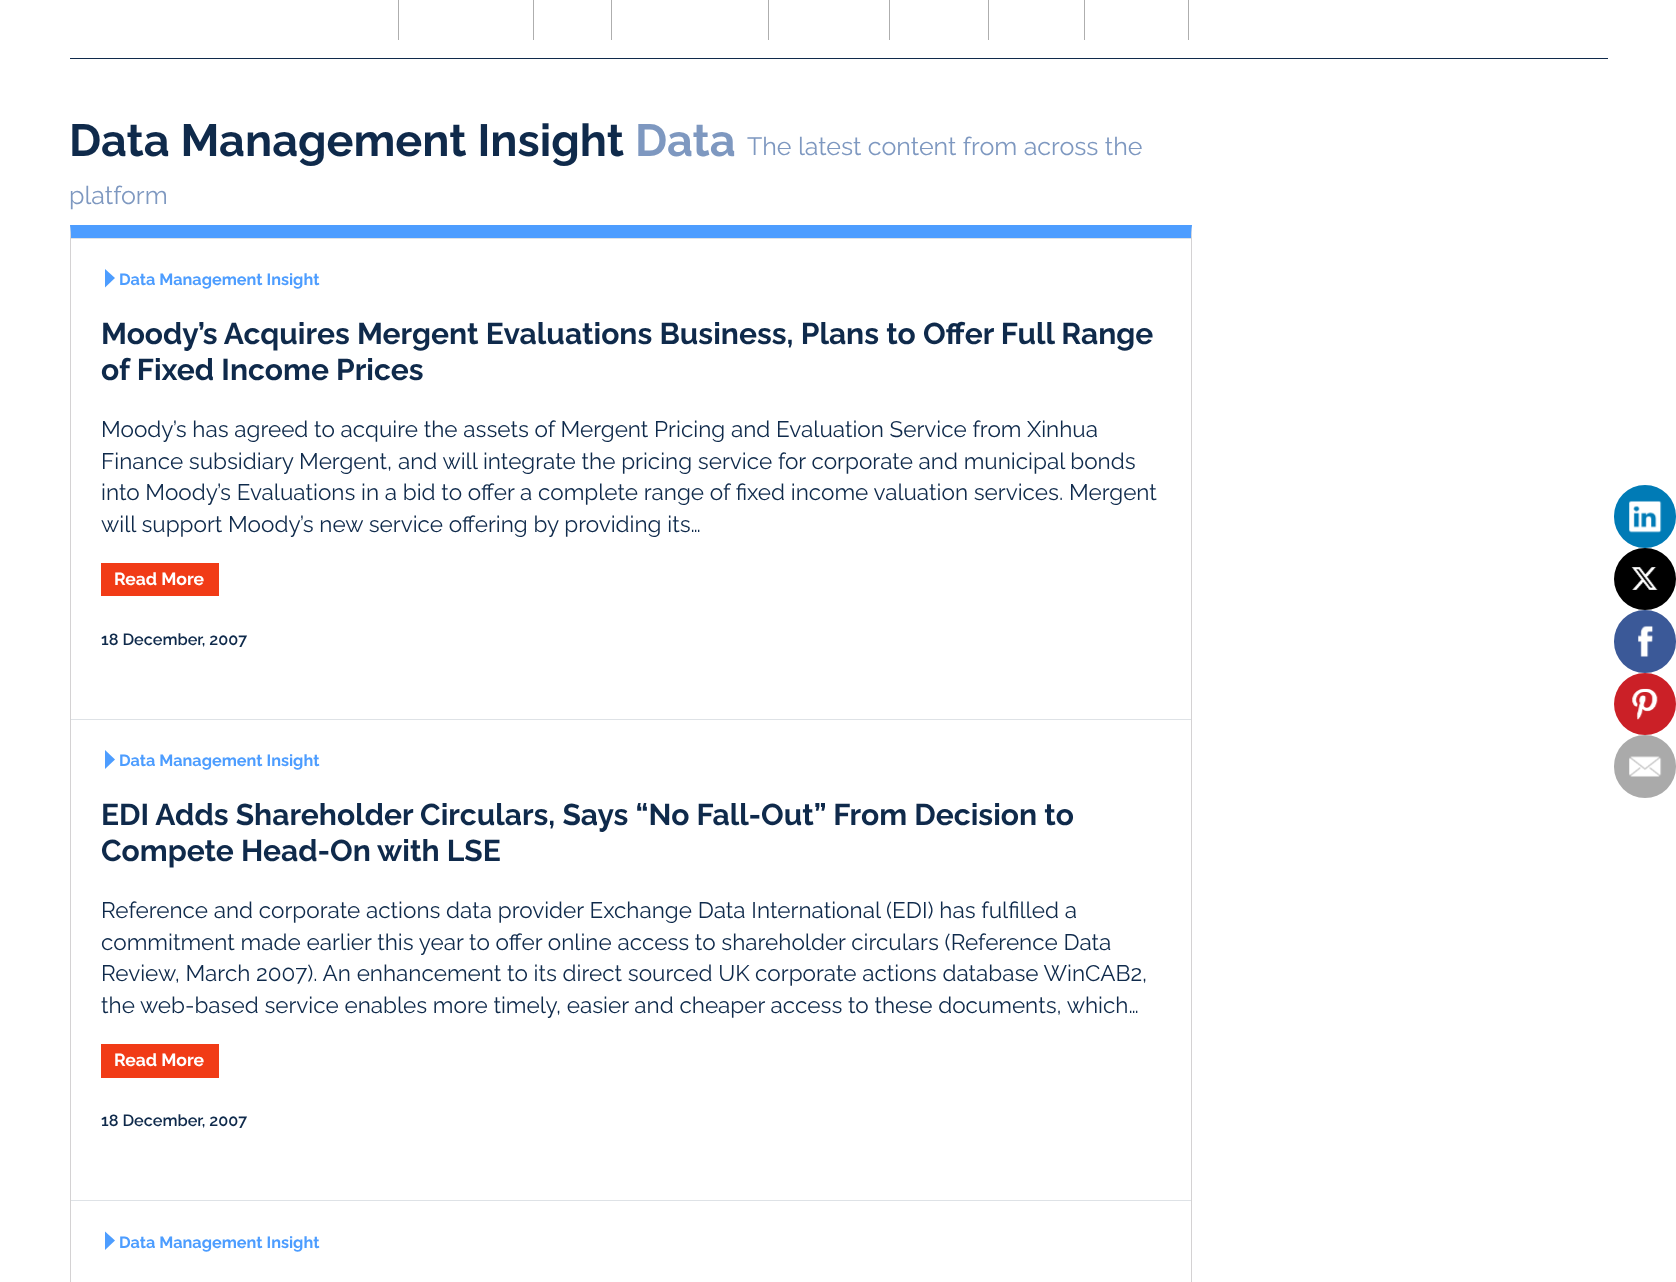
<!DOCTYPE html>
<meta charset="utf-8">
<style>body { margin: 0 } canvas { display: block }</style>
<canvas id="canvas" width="1676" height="1282"></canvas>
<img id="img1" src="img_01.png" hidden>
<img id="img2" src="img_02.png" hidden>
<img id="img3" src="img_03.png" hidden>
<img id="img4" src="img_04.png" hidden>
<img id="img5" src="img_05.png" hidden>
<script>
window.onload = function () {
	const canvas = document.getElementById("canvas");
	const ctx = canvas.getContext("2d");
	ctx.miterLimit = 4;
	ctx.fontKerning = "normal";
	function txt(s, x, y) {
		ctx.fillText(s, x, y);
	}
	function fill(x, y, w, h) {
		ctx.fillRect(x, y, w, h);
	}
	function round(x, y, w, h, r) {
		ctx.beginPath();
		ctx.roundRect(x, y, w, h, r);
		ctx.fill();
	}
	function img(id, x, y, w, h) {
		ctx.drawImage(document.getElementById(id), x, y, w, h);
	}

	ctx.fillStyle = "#FFFFFF";
	fill(0, 0, 1676, 1282);
	ctx.fillStyle = "#102A4B";
	fill(70, 58, 1538, 1);
	ctx.fillStyle = "#AEAEAE";
	fill(533, 0, 1, 40);
	fill(398, 0, 1, 40);
	fill(611, 0, 1, 40);
	fill(768, 0, 1, 40);
	fill(889, 0, 1, 40);
	fill(988, 0, 1, 40);
	fill(1084, 0, 1, 40);
	fill(1188, 0, 1, 40);
	ctx.fillStyle = "#4D9DFF";
	ctx.beginPath();
	ctx.moveTo(70, 225);
	ctx.lineTo(1192, 225);
	ctx.lineTo(1191, 238);
	ctx.lineTo(71, 238);
	ctx.closePath();
	ctx.fill();
	ctx.fillStyle = "#D4D2D3";
	ctx.beginPath();
	ctx.moveTo(1192, 225);
	ctx.lineTo(1192, 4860);
	ctx.lineTo(1191, 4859);
	ctx.lineTo(1191, 238);
	ctx.closePath();
	ctx.fill();
	ctx.beginPath();
	ctx.moveTo(70, 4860);
	ctx.lineTo(70, 225);
	ctx.lineTo(71, 238);
	ctx.lineTo(71, 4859);
	ctx.closePath();
	ctx.fill();
	ctx.fillStyle = "#DEE2E6";
	fill(71, 238, 1120, 1);
	ctx.fillStyle = "#4D9DFF";
	ctx.beginPath();
	ctx.moveTo(105, 269);
	ctx.lineTo(115, 278);
	ctx.lineTo(105, 287.5);
	ctx.closePath();
	ctx.fill();
	ctx.fillStyle = "#F13B16";
	fill(101, 563, 118, 33);
	ctx.fillStyle = "#DEE2E6";
	fill(71, 719, 1120, 1);
	ctx.fillStyle = "#4D9DFF";
	ctx.beginPath();
	ctx.moveTo(105, 750);
	ctx.lineTo(115, 759.5);
	ctx.lineTo(105, 769);
	ctx.closePath();
	ctx.fill();
	ctx.fillStyle = "#F13B16";
	fill(101, 1044, 118, 34);
	ctx.fillStyle = "#DEE2E6";
	fill(71, 1200, 1120, 1);
	ctx.fillStyle = "#4D9DFF";
	ctx.beginPath();
	ctx.moveTo(105, 1231.5);
	ctx.lineTo(115, 1240.5);
	ctx.lineTo(105, 1250);
	ctx.closePath();
	ctx.fill();
	ctx.fillStyle = "#007BB6";
	round(1614, 485, 62, 63, 31);
	img("img1", 1629, 500, 33, 33);
	ctx.fillStyle = "#000000";
	ctx.beginPath();
	ctx.arc(1645, 579, 31, 0, Math.PI * 2);
	ctx.fill();
	img("img2", 1631, 567, 27, 23);
	ctx.fillStyle = "#3B5998";
	round(1614, 610, 62, 63, 31);
	img("img3", 1638, 625, 16, 32);
	ctx.fillStyle = "#CB2027";
	ctx.beginPath();
	ctx.arc(1645, 704, 31, 0, Math.PI * 2);
	ctx.fill();
	img("img4", 1632, 688, 26, 32);
	ctx.fillStyle = "#AAAAAA";
	round(1614, 735, 62, 63, 31);
	img("img5", 1629, 756, 33, 21);
	ctx.font = "bold 45px Raleway";
	ctx.fillStyle = "#0F2A4B";
	txt("Data Management Insight", 69, 156);
	ctx.fillStyle = "#7E98C0";
	txt("Data", 635, 156);
	ctx.font = "25px Raleway";
	txt("The latest content from across the", 747, 155);
	txt("platform", 69, 204);
	ctx.font = "bold 16.25px Raleway";
	ctx.fillStyle = "#4D9DFF";
	txt("Data Management Insight", 119, 285);
	ctx.font = "bold 30px Raleway";
	ctx.fillStyle = "#0F2A4B";
	txt("Moody’s Acquires Mergent Evaluations Business, Plans to Offer Full Range", 101, 344);
	txt("of Fixed Income Prices", 101, 380);
	ctx.font = "22.5px Raleway";
	txt("Moody’s has agreed to acquire the assets of Mergent Pricing and Evaluation Service from Xinhua", 101, 437);
	txt("Finance subsidiary Mergent, and will integrate the pricing service for corporate and municipal bonds", 101, 469);
	txt("into Moody’s Evaluations in a bid to offer a complete range of fixed income valuation services. Mergent", 101, 500);
	txt("will support Moody’s new service offering by providing its…", 101, 532);
	ctx.font = "bold 17.5px Raleway";
	ctx.fillStyle = "#FFFFFF";
	txt("Read More", 114, 585);
	ctx.font = "600 16.25px Raleway";
	ctx.fillStyle = "#0F2A4B";
	txt("18 December, 2007", 101, 645);
	ctx.font = "bold 16.25px Raleway";
	ctx.fillStyle = "#4D9DFF";
	txt("Data Management Insight", 119, 766);
	ctx.font = "bold 30px Raleway";
	ctx.fillStyle = "#0F2A4B";
	txt("EDI Adds Shareholder Circulars, Says “No Fall-Out” From Decision to", 101, 825);
	txt("Compete Head-On with LSE", 101, 861);
	ctx.font = "22.5px Raleway";
	txt("Reference and corporate actions data provider Exchange Data International (EDI) has fulfilled a", 101, 918);
	txt("commitment made earlier this year to offer online access to shareholder circulars (Reference Data", 101, 950);
	txt("Review, March 2007). An enhancement to its direct sourced UK corporate actions database WinCAB2,", 101, 981);
	txt("the web-based service enables more timely, easier and cheaper access to these documents, which…", 101, 1013);
	ctx.font = "bold 17.5px Raleway";
	ctx.fillStyle = "#FFFFFF";
	txt("Read More", 114, 1066);
	ctx.font = "600 16.25px Raleway";
	ctx.fillStyle = "#0F2A4B";
	txt("18 December, 2007", 101, 1126);
	ctx.font = "bold 16.25px Raleway";
	ctx.fillStyle = "#4D9DFF";
	txt("Data Management Insight", 119, 1248);
};
</script>
